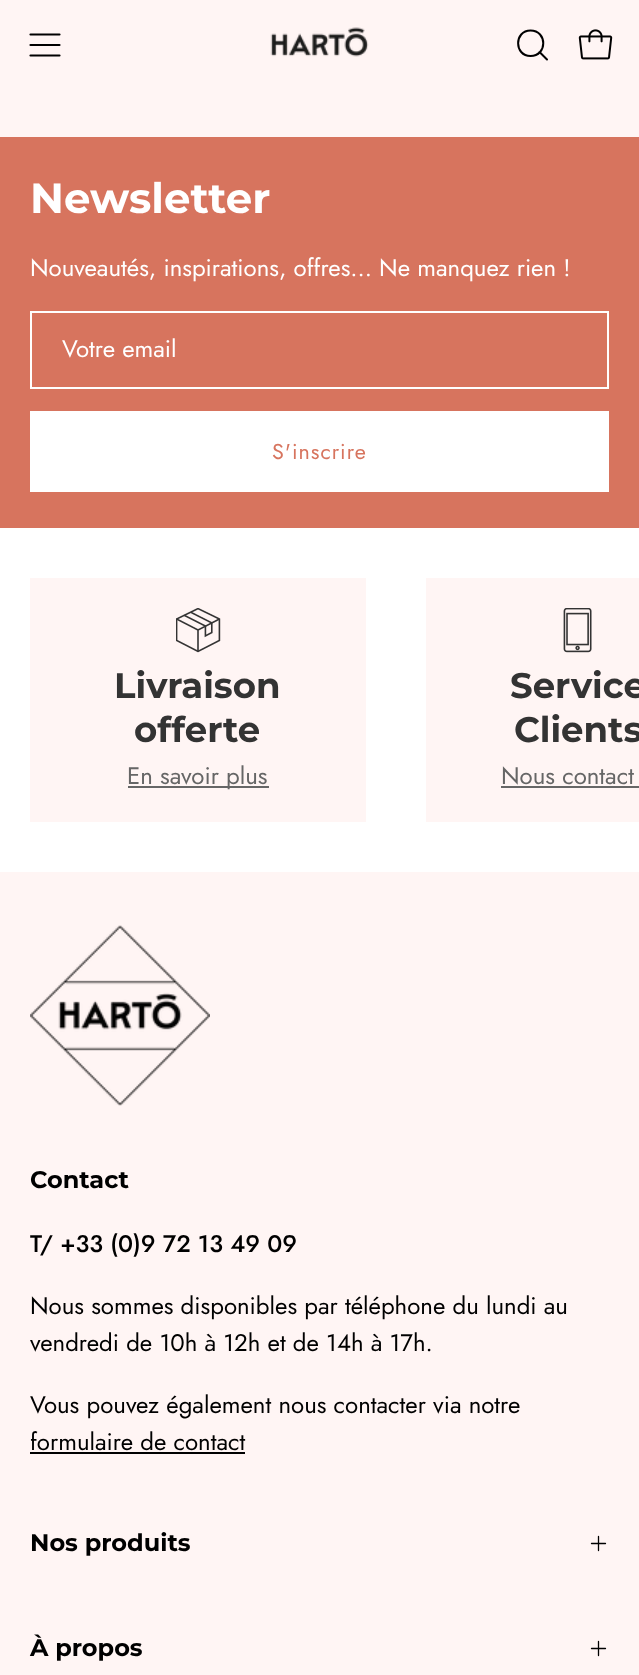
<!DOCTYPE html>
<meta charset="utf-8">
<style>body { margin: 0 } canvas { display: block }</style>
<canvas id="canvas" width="639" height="1675"></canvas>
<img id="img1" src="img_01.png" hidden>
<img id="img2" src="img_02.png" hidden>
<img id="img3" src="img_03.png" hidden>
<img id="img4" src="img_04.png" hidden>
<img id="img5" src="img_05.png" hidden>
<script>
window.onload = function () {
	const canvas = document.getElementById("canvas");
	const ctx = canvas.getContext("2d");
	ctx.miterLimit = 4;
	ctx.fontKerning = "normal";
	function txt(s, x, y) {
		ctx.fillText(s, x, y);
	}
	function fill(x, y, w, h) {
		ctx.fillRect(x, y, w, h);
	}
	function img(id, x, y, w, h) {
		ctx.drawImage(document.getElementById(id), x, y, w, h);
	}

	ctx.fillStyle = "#FFF5F4";
	fill(0, 0, 639, 1675);
	ctx.beginPath();
	ctx.moveTo(30.5, 45);
	ctx.lineTo(59.5, 45);
	ctx.moveTo(30.5, 34.5);
	ctx.lineTo(59.5, 34.5);
	ctx.moveTo(30.5, 55.5);
	ctx.lineTo(59.5, 55.5);
	ctx.strokeStyle = "#000000";
	ctx.lineWidth = 2.2;
	ctx.lineCap = "round";
	ctx.lineJoin = "round";
	ctx.stroke();
	img("img1", 270, 27, 99, 30);
	ctx.beginPath();
	ctx.moveTo(530.5, 56);
	ctx.bezierCurveTo(547.5, 56, 547.5, 30.5, 530.5, 30.5);
	ctx.bezierCurveTo(514, 30.5, 514, 56, 530.5, 56);
	ctx.closePath();
	ctx.moveTo(539.5, 52);
	ctx.lineTo(547, 59.5);
	ctx.lineWidth = 2;
	ctx.stroke();
	img("img2", 578, 29, 35, 31);
	ctx.fillStyle = "#D7745E";
	fill(0, 137, 639, 391);
	ctx.strokeStyle = "#FFFFFF";
	ctx.lineJoin = "miter";
	ctx.strokeRect(31, 312, 577, 76);
	ctx.fillStyle = "#FFFFFF";
	fill(30, 411, 579, 81);
	fill(0, 528, 639, 344);
	ctx.fillStyle = "#FFF5F4";
	fill(30, 578, 336, 244);
	img("img3", 176, 608, 45, 45);
	ctx.fillStyle = "#666666";
	fill(128, 786, 141, 2);
	ctx.fillStyle = "#FFF5F4";
	fill(426, 578, 213, 244);
	img("img4", 563, 608, 29, 45);
	ctx.fillStyle = "#666666";
	fill(501, 786, 138, 2);
	img("img5", 30, 925, 180, 181);
	ctx.fillStyle = "#000000";
	fill(30, 1452, 215, 2);
	ctx.beginPath();
	ctx.moveTo(591.5, 1543.5);
	ctx.lineTo(605.5, 1543.5);
	ctx.moveTo(598.5, 1536.5);
	ctx.lineTo(598.5, 1550.5);
	ctx.strokeStyle = "#000000";
	ctx.lineWidth = 1.3;
	ctx.lineJoin = "round";
	ctx.stroke();
	ctx.beginPath();
	ctx.moveTo(591.5, 1648.5);
	ctx.lineTo(605.5, 1648.5);
	ctx.moveTo(598.5, 1641.5);
	ctx.lineTo(598.5, 1655.5);
	ctx.stroke();
	ctx.font = "bold 42px Montserrat";
	ctx.fillStyle = "#FFFFFF";
	txt("Newsletter", 30, 213);
	ctx.font = "24px Jost";
	txt("Nouveautés, inspirations, offres... Ne manquez rien !", 30, 276);
	txt("Votre email", 62, 357);
	ctx.letterSpacing = "1px";
	ctx.font = "21.5px Jost";
	ctx.fillStyle = "#D7745E";
	txt("S'inscrire", 272, 459);
	ctx.letterSpacing = "0px";
	ctx.font = "bold 35.5px Montserrat";
	ctx.fillStyle = "#333333";
	txt("Livraison", 114, 698);
	txt("offerte", 134, 742);
	ctx.font = "24px Jost";
	ctx.fillStyle = "#666666";
	txt("En savoir plus", 127, 784);
	ctx.font = "bold 35.5px Montserrat";
	ctx.fillStyle = "#333333";
	txt("Service", 510, 698);
	txt("Clients", 514, 742);
	ctx.font = "24px Jost";
	ctx.fillStyle = "#666666";
	txt("Nous contact", 501, 784);
	ctx.font = "bold 24px Montserrat";
	ctx.fillStyle = "#000000";
	txt("Contact", 30, 1188);
	ctx.font = "500 24px Jost";
	txt("T/ +33 (0)9 72 13 49 09", 30, 1252);
	ctx.font = "24px Jost";
	txt("Nous sommes disponibles par téléphone du lundi au", 30, 1314);
	txt("vendredi de 10h à 12h et de 14h à 17h.", 30, 1351);
	txt("Vous pouvez également nous contacter via notre", 30, 1413);
	txt("formulaire de contact", 30, 1450);
	ctx.font = "bold 24px Montserrat";
	txt("Nos produits", 30, 1551);
	txt("À propos", 30, 1656);
};
</script>
